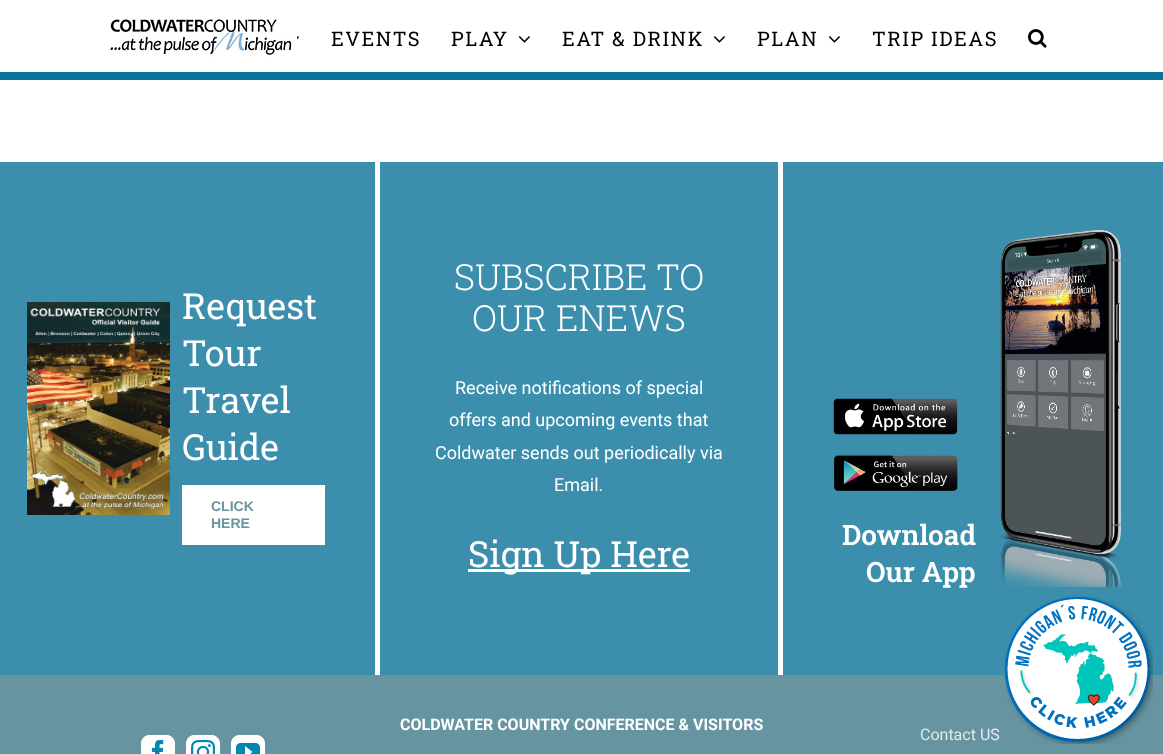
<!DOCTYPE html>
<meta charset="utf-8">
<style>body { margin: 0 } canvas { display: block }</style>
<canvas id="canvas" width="1163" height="754"></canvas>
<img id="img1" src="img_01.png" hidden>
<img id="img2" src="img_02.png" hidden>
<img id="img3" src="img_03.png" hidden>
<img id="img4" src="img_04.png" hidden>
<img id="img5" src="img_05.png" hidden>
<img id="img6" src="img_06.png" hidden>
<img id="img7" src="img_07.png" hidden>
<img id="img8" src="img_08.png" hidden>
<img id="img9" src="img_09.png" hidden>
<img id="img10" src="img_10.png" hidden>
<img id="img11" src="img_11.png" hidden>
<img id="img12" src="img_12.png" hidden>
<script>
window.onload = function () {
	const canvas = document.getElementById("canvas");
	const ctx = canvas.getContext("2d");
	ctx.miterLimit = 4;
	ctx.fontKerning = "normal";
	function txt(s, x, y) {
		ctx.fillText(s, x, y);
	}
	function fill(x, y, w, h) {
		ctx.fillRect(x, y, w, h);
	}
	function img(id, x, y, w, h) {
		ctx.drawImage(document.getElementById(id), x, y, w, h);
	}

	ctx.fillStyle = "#FFFFFF";
	fill(0, 0, 1163, 754);
	ctx.fillStyle = "#0A7397";
	fill(0, 72, 1163, 8);
	img("img1", 110, 19, 187, 39);
	img("img2", 297, 36, 2, 4);
	img("img3", 518, 36, 12, 7);
	img("img3", 713, 36, 12, 7);
	img("img3", 828, 36, 12, 7);
	img("img4", 1028, 29, 19, 19);
	ctx.fillStyle = "#3B8FAC";
	fill(0, 162, 375, 513);
	img("img5", 27, 302, 143, 213);
	ctx.fillStyle = "#FFFFFF";
	fill(182, 485, 143, 60);
	ctx.fillStyle = "#3B8FAC";
	fill(380, 162, 398, 513);
	ctx.fillStyle = "#FFFFFF";
	fill(468, 569, 222, 3);
	ctx.fillStyle = "#3B8FAC";
	fill(783, 162, 380, 513);
	img("img6", 833, 398, 125, 37);
	img("img7", 834, 455, 124, 36);
	img("img8", 999, 230, 122, 357);
	ctx.fillStyle = "#6694A1";
	fill(0, 675, 1163, 79);
	ctx.fillStyle = "#FFFFFF";
	ctx.beginPath();
	ctx.roundRect(141.5, 735.5, 33, 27, 7.5);
	ctx.fill();
	ctx.strokeStyle = "#FFFFFF";
	ctx.stroke();
	img("img9", 152, 740, 12, 14);
	ctx.beginPath();
	ctx.roundRect(186.5, 735.5, 33, 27, 7.5);
	ctx.fill();
	ctx.stroke();
	img("img10", 191, 740, 24, 14);
	ctx.beginPath();
	ctx.roundRect(231.5, 735.5, 33, 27, 7.5);
	ctx.fill();
	ctx.stroke();
	img("img11", 236, 743, 24, 11);
	img("img12", 1004, 596, 149, 148);
	ctx.letterSpacing = "1.5px";
	ctx.font = "20px Roboto Slab";
	ctx.fillStyle = "#000000";
	txt("EVENTS", 331, 46);
	txt("PLAY", 451, 46);
	txt("EAT & DRINK", 562, 46);
	txt("PLAN", 757, 46);
	txt("TRIP IDEAS", 872, 46);
	ctx.letterSpacing = "0px";
	ctx.font = "36px Roboto Slab";
	ctx.fillStyle = "#FFFFFF";
	txt("Request", 182, 319);
	txt("Tour", 182, 366);
	txt("Travel", 182, 413);
	txt("Guide", 182, 460);
	ctx.font = "bold 14px Liberation Sans";
	ctx.fillStyle = "#6694A1";
	txt("CLICK", 211, 511);
	txt("HERE", 211, 528);
	ctx.font = "300 36px Roboto Slab";
	ctx.fillStyle = "#FFFFFF";
	txt("SUBSCRIBE TO", 454, 290);
	txt("OUR ENEWS", 472, 331);
	ctx.font = "18px Roboto";
	txt("Receive notifications of special", 455, 394);
	txt("offers and upcoming events that", 449, 426);
	txt("Coldwater sends out periodically via", 435, 459);
	txt("Email.", 554, 491);
	ctx.font = "36px Roboto Slab";
	txt("Sign Up Here", 468, 567);
	ctx.font = "600 28px Roboto Slab";
	txt("Download", 842, 545);
	txt("Our App", 866, 582);
	ctx.font = "bold 16px Roboto";
	txt("COLDWATER COUNTRY CONFERENCE & VISITORS", 400, 730);
	ctx.font = "16px Roboto";
	ctx.fillStyle = "#E0EAEC";
	txt("Contact US", 920, 740);
};
</script>
